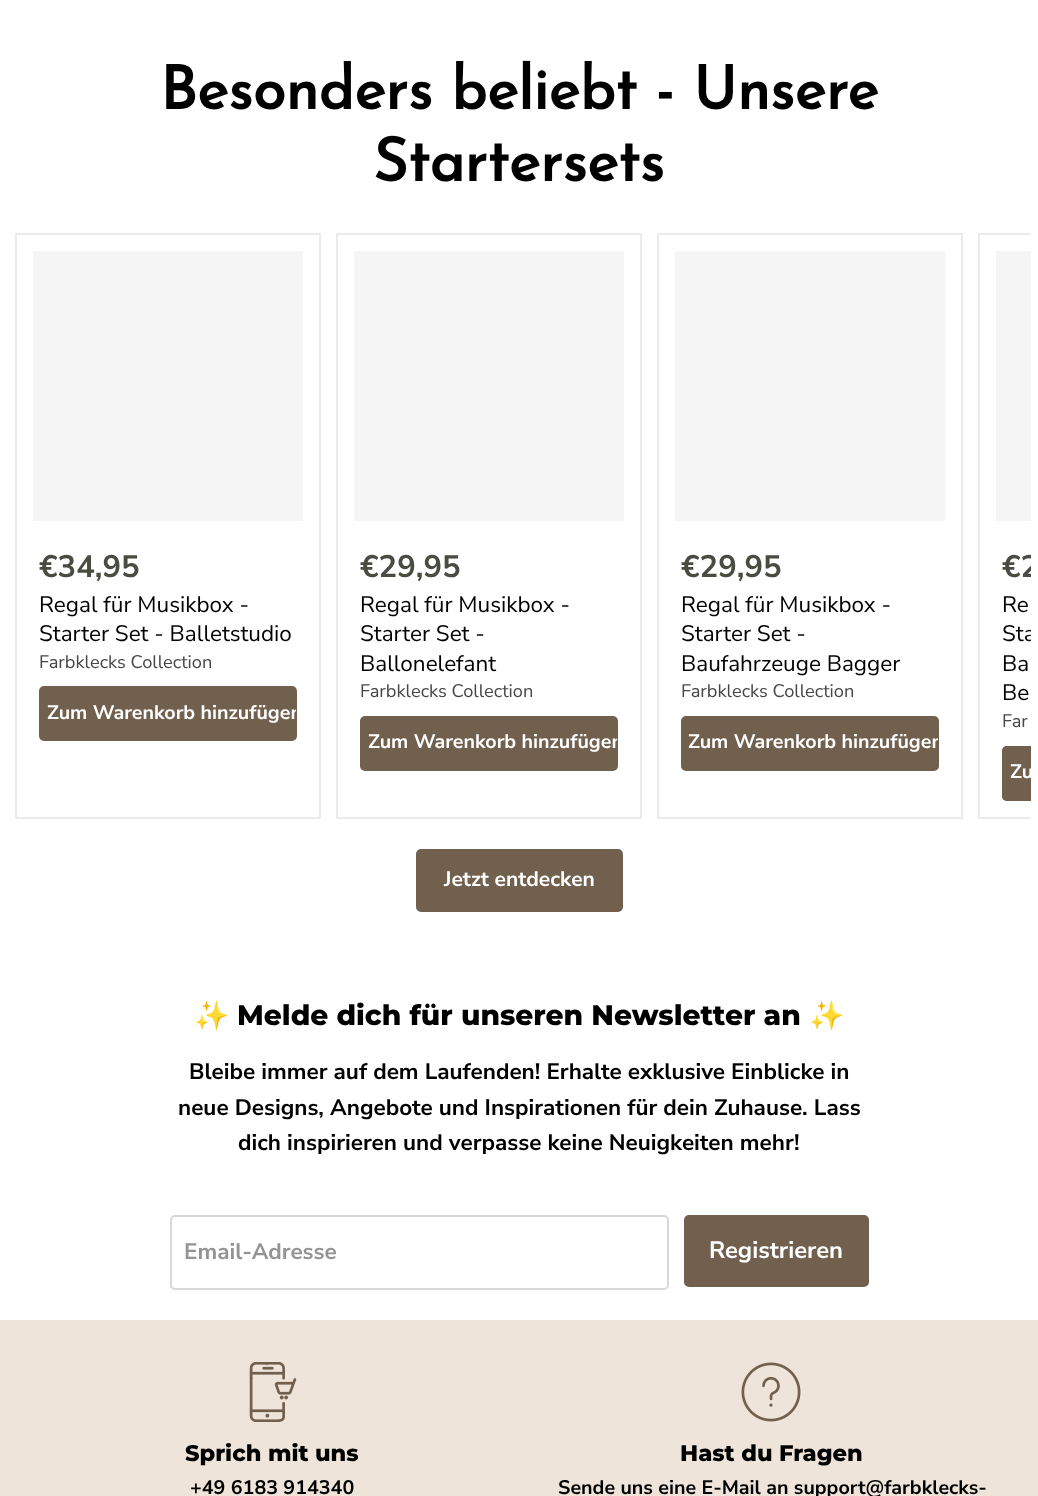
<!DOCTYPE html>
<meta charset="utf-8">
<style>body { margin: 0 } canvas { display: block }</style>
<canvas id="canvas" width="1038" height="1496"></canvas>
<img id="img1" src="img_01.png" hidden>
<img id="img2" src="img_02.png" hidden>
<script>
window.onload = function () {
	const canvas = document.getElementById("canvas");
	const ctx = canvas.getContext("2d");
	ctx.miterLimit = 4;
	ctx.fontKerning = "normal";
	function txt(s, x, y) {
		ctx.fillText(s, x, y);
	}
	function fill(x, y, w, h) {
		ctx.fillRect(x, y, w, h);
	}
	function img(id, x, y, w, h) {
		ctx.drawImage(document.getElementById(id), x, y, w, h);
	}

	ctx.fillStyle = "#FFFFFF";
	fill(0, 0, 1038, 1496);
	ctx.strokeStyle = "#EBEBEB";
	ctx.lineWidth = 2;
	ctx.strokeRect(16, 234, 304, 584);
	ctx.fillStyle = "#F5F5F5";
	fill(33, 251, 270, 270);
	ctx.fillStyle = "#72604F";
	ctx.beginPath();
	ctx.roundRect(40, 687, 256, 53, 4);
	ctx.fill();
	ctx.strokeStyle = "#72604F";
	ctx.stroke();
	ctx.strokeStyle = "#EBEBEB";
	ctx.strokeRect(337, 234, 304, 584);
	ctx.fillStyle = "#F5F5F5";
	fill(354, 251, 270, 270);
	ctx.fillStyle = "#72604F";
	ctx.beginPath();
	ctx.roundRect(361, 717, 256, 53, 4);
	ctx.fill();
	ctx.strokeStyle = "#72604F";
	ctx.stroke();
	ctx.strokeStyle = "#EBEBEB";
	ctx.strokeRect(658, 234, 304, 584);
	ctx.fillStyle = "#F5F5F5";
	fill(675, 251, 270, 270);
	ctx.fillStyle = "#72604F";
	ctx.beginPath();
	ctx.roundRect(682, 717, 256, 53, 4);
	ctx.fill();
	ctx.strokeStyle = "#72604F";
	ctx.stroke();
	ctx.save();
	ctx.beginPath();
	ctx.rect(8, 233, 1023, 1173);
	ctx.clip();
	ctx.strokeStyle = "#EBEBEB";
	ctx.strokeRect(979, 234, 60, 584);
	ctx.restore();
	ctx.fillStyle = "#F5F5F5";
	fill(996, 251, 35, 270);
	ctx.fillStyle = "#72604F";
	ctx.beginPath();
	ctx.roundRect(1002, 746, 29, 55, [5, 0, 0, 5]);
	ctx.fill();
	ctx.save();
	ctx.beginPath();
	ctx.rect(8, 233, 1023, 1173);
	ctx.clip();
	ctx.beginPath();
	ctx.roundRect(1003, 747, 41, 53, 4);
	ctx.stroke();
	ctx.restore();
	ctx.beginPath();
	ctx.roundRect(417, 850, 205, 61, 4);
	ctx.fill();
	ctx.stroke();
	ctx.beginPath();
	ctx.roundRect(171, 1216, 497, 73, 4);
	ctx.strokeStyle = "#D8D8DA";
	ctx.stroke();
	ctx.beginPath();
	ctx.roundRect(685, 1216, 183, 70, 4);
	ctx.fill();
	ctx.strokeStyle = "#72604F";
	ctx.stroke();
	ctx.fillStyle = "#EEE4D9";
	fill(0, 1320, 1038, 176);
	img("img1", 249, 1362, 48, 60);
	img("img2", 741, 1362, 60, 60);
	ctx.font = "bold 60px Josefin Sans";
	ctx.fillStyle = "#000000";
	txt("Besonders beliebt - Unsere", 160, 109);
	txt("Startersets", 373, 181);
	ctx.font = "bold 31px Nunito Sans";
	ctx.fillStyle = "#494D41";
	txt("€34,95", 39, 577);
	ctx.font = "22.5px Nunito Sans";
	ctx.fillStyle = "#000000";
	txt("Regal für Musikbox -", 39, 612);
	txt("Starter Set - Balletstudio", 39, 641);
	ctx.font = "18.25px Nunito Sans";
	ctx.fillStyle = "#464646";
	txt("Farbklecks Collection", 39, 668);
	ctx.save();
	ctx.beginPath();
	ctx.roundRect(41, 687, 255, 53, 3);
	ctx.clip();
	ctx.font = "bold 19.7px Nunito Sans";
	ctx.fillStyle = "#FFFFFF";
	txt("Zum Warenkorb hinzufügen", 47, 719);
	ctx.restore();
	ctx.font = "bold 31px Nunito Sans";
	ctx.fillStyle = "#494D41";
	txt("€29,95", 360, 577);
	ctx.font = "22.5px Nunito Sans";
	ctx.fillStyle = "#000000";
	txt("Regal für Musikbox -", 360, 612);
	txt("Starter Set -", 360, 641);
	txt("Ballonelefant", 360, 671);
	ctx.font = "18.25px Nunito Sans";
	ctx.fillStyle = "#464646";
	txt("Farbklecks Collection", 360, 697);
	ctx.save();
	ctx.beginPath();
	ctx.roundRect(362, 717, 255, 53, 3);
	ctx.clip();
	ctx.font = "bold 19.7px Nunito Sans";
	ctx.fillStyle = "#FFFFFF";
	txt("Zum Warenkorb hinzufügen", 368, 748);
	ctx.restore();
	ctx.font = "bold 31px Nunito Sans";
	ctx.fillStyle = "#494D41";
	txt("€29,95", 681, 577);
	ctx.font = "22.5px Nunito Sans";
	ctx.fillStyle = "#000000";
	txt("Regal für Musikbox -", 681, 612);
	txt("Starter Set -", 681, 641);
	txt("Baufahrzeuge Bagger", 681, 671);
	ctx.font = "18.25px Nunito Sans";
	ctx.fillStyle = "#464646";
	txt("Farbklecks Collection", 681, 697);
	ctx.save();
	ctx.beginPath();
	ctx.roundRect(683, 717, 255, 53, 3);
	ctx.clip();
	ctx.font = "bold 19.7px Nunito Sans";
	ctx.fillStyle = "#FFFFFF";
	txt("Zum Warenkorb hinzufügen", 688, 748);
	ctx.restore();
	ctx.save();
	ctx.beginPath();
	ctx.rect(8, 233, 1023, 1173);
	ctx.clip();
	ctx.font = "bold 31px Nunito Sans";
	ctx.fillStyle = "#494D41";
	txt("€2", 1002, 577);
	ctx.restore();
	ctx.font = "22.5px Nunito Sans";
	ctx.fillStyle = "#000000";
	txt("Re", 1002, 612);
	ctx.save();
	ctx.beginPath();
	ctx.rect(8, 233, 1023, 1173);
	ctx.clip();
	txt("Sta", 1002, 641);
	ctx.restore();
	txt("Ba", 1002, 671);
	txt("Be", 1002, 700);
	ctx.font = "18.25px Nunito Sans";
	ctx.fillStyle = "#464646";
	txt("Far", 1002, 727);
	ctx.save();
	ctx.beginPath();
	ctx.rect(8, 233, 1023, 1173);
	ctx.clip();
	ctx.font = "bold 19.7px Nunito Sans";
	ctx.fillStyle = "#FFFFFF";
	txt("Zu", 1010, 778);
	ctx.restore();
	ctx.font = "bold 21px Nunito Sans";
	ctx.fillStyle = "#FFFFFF";
	txt("Jetzt entdecken", 444, 886);
	ctx.font = "bold 28.1px Noto Color Emoji";
	ctx.fillStyle = "#000000";
	txt("✨", 194, 1025);
	ctx.font = "800 28.1px Montserrat";
	txt("Melde dich für unseren Newsletter an", 237, 1025);
	ctx.font = "bold 28.1px Noto Color Emoji";
	txt("✨", 809, 1025);
	ctx.font = "bold 22.5px Nunito Sans";
	txt("Bleibe immer auf dem Laufenden! Erhalte exklusive Einblicke in", 189, 1079);
	txt("neue Designs, Angebote und Inspirationen für dein Zuhause. Lass", 178, 1115);
	txt("dich inspirieren und verpasse keine Neuigkeiten mehr!", 238, 1150);
	ctx.fillStyle = "#949494";
	txt("Email-Adresse", 184, 1259);
	ctx.font = "bold 23.75px Nunito Sans";
	ctx.fillStyle = "#FFFFFF";
	txt("Registrieren", 709, 1258);
	ctx.font = "800 22.5px Montserrat";
	ctx.fillStyle = "#000000";
	txt("Sprich mit uns", 185, 1461);
	ctx.font = "bold 19.7px Nunito Sans";
	txt("+49 6183 914340", 190, 1494);
	ctx.font = "800 22.5px Montserrat";
	txt("Hast du Fragen", 680, 1461);
	ctx.font = "bold 19.7px Nunito Sans";
	txt("Sende uns eine E-Mail an support@farbklecks-", 558, 1494);
};
</script>
